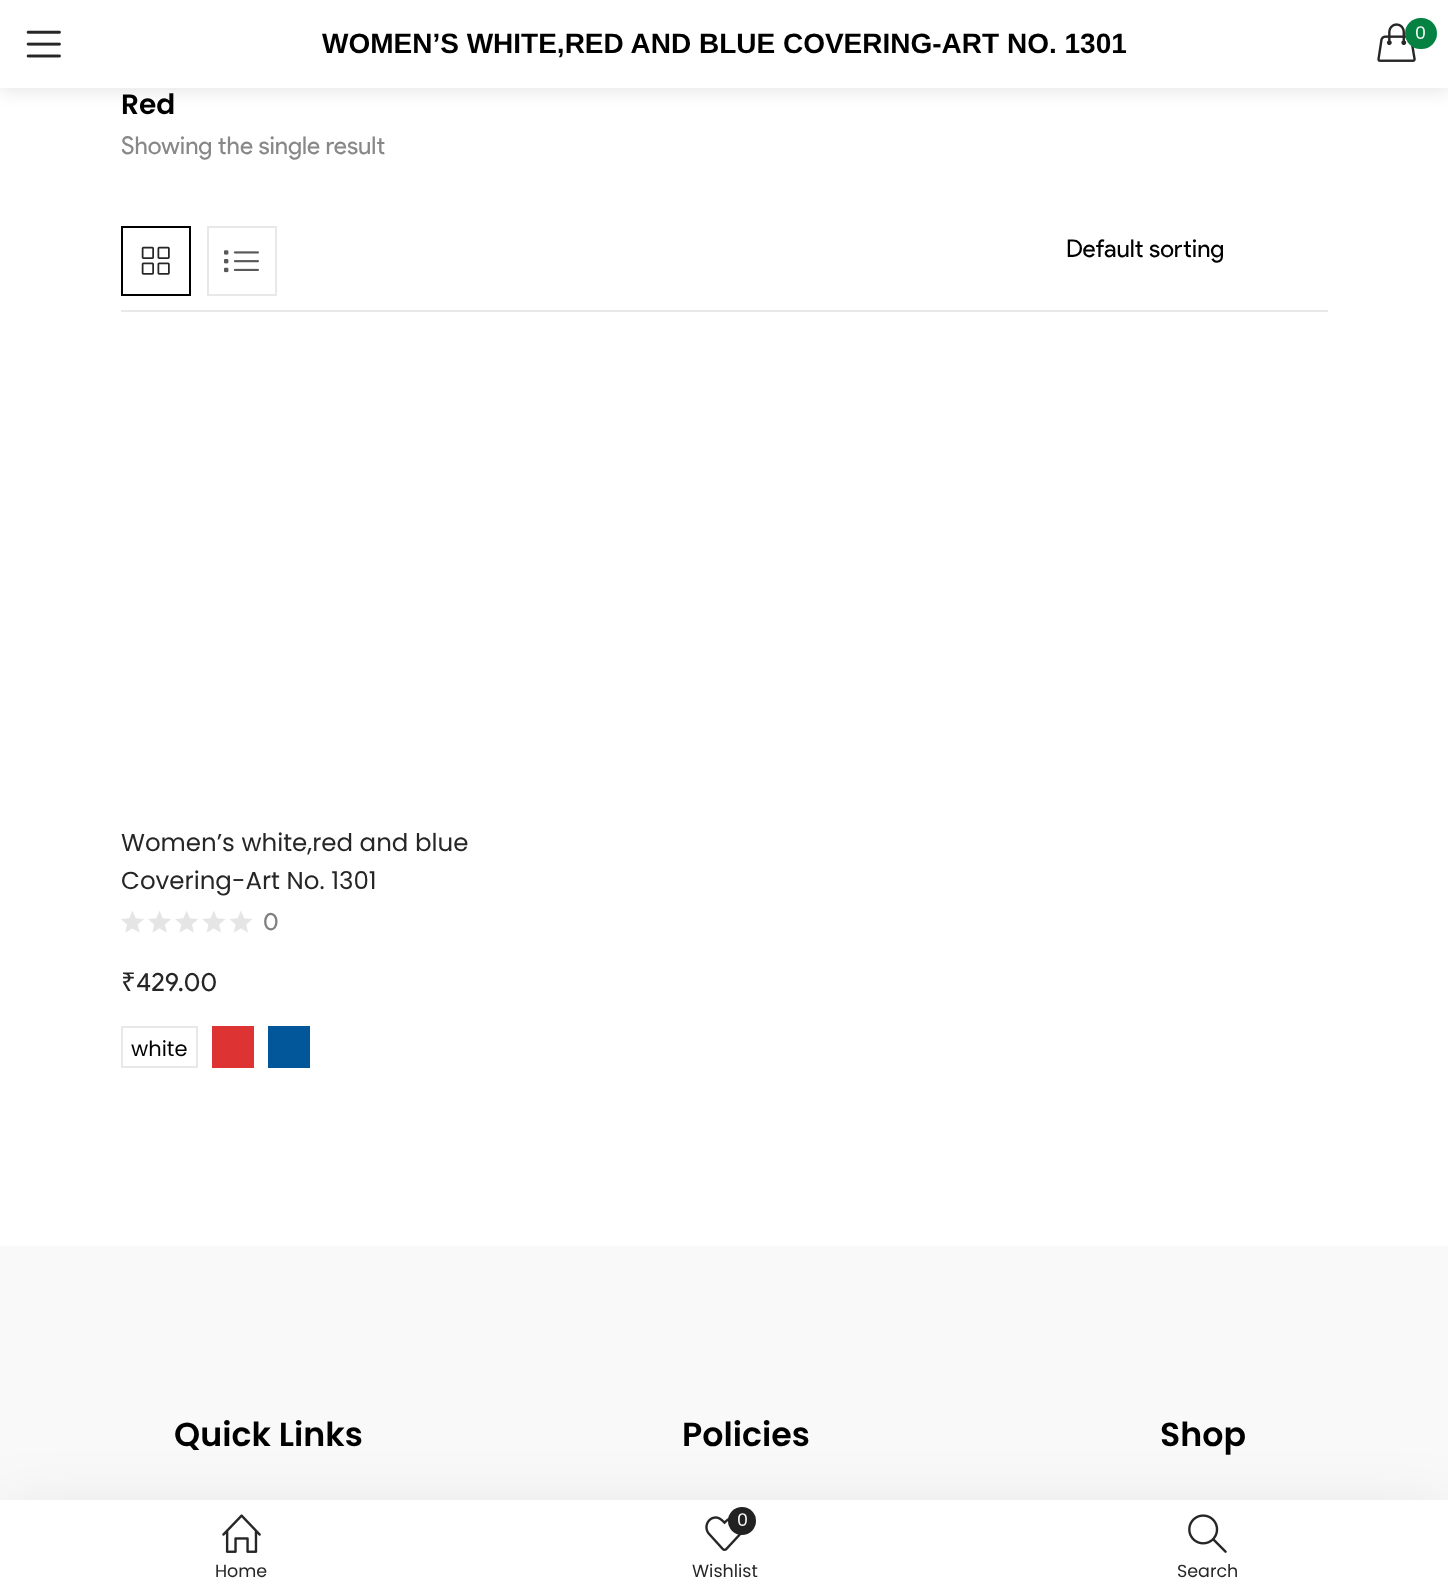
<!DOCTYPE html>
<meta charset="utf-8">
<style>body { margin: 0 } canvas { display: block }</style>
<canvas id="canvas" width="1448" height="1593"></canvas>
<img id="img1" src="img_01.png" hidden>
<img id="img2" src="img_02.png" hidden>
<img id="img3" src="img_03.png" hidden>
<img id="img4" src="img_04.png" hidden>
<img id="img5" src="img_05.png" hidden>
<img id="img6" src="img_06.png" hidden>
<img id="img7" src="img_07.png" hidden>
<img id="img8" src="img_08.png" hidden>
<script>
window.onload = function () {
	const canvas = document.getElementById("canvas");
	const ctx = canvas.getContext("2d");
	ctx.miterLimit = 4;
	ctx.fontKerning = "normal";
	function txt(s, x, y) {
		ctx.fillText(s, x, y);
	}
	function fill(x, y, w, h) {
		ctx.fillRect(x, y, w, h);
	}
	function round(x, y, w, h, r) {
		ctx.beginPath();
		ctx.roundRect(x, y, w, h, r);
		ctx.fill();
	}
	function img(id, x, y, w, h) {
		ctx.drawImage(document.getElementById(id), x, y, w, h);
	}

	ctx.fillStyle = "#FFFFFF";
	fill(0, 0, 1448, 1593);
	ctx.fillStyle = "rgba(0, 0, 0, 0.1)";
	ctx.filter = "blur(9px)";
	ctx.beginPath();
	ctx.rect(0, 4, 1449, 87);
	ctx.fill();
	ctx.filter = "none";
	ctx.fillStyle = "#FFFFFF";
	fill(0, 0, 1448, 88);
	img("img1", 26, 30, 35, 28);
	img("img2", 1377, 23, 39, 39);
	ctx.fillStyle = "#058242";
	round(1405, 18, 32, 31, 15.5);
	ctx.fillStyle = "#E8E8E8";
	fill(121, 310, 1207, 2);
	ctx.strokeStyle = "#000000";
	ctx.lineWidth = 2;
	ctx.strokeRect(122, 227, 68, 68);
	img("img3", 141, 246, 29, 29);
	ctx.strokeStyle = "#E8E8E8";
	ctx.strokeRect(208, 227, 68, 68);
	img("img4", 224, 250, 35, 23);
	img("img5", 121, 911, 131, 22);
	ctx.strokeRect(122, 1027, 75, 40);
	ctx.fillStyle = "#DD3333";
	fill(212, 1026, 42, 42);
	ctx.fillStyle = "#015799";
	fill(268, 1026, 42, 42);
	ctx.fillStyle = "#F9F9F9";
	fill(0, 1246, 1448, 254);
	ctx.fillStyle = "rgba(0, 0, 0, 0.1)";
	ctx.filter = "blur(35px)";
	ctx.beginPath();
	ctx.rect(0, 1517, 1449, 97);
	ctx.fill();
	ctx.filter = "none";
	ctx.fillStyle = "#FFFFFF";
	fill(0, 1500, 1448, 93);
	img("img6", 222, 1514, 39, 39);
	img("img7", 705, 1516, 37, 35);
	ctx.fillStyle = "#222222";
	ctx.beginPath();
	ctx.arc(742, 1521, 14, 0, Math.PI * 2);
	ctx.fill();
	img("img8", 1188, 1514, 39, 39);
	ctx.font = "bold 28px Liberation Sans";
	ctx.fillStyle = "#000000";
	txt("WOMEN’S WHITE,RED AND BLUE COVERING-ART NO. 1301", 322, 53);
	ctx.font = "17.5px Poppins";
	ctx.fillStyle = "#FFFFFF";
	txt("0", 1415, 39);
	ctx.font = "600 28px Poppins";
	ctx.fillStyle = "#000000";
	txt("Red", 121, 114);
	ctx.font = "24.5px Product Sans";
	ctx.fillStyle = "#888888";
	txt("Showing the single result", 121, 154);
	ctx.fillStyle = "#000000";
	txt("Default sorting", 1066, 257);
	ctx.font = "24.5px Poppins";
	ctx.fillStyle = "#262626";
	txt("Women’s white,red and blue", 121, 851);
	txt("Covering-Art No. 1301", 121, 889);
	ctx.font = "24.5px Product Sans";
	ctx.fillStyle = "#808080";
	txt("0", 263, 930);
	ctx.font = "26px Noto Sans";
	ctx.fillStyle = "#262626";
	txt("₹", 121, 991);
	ctx.font = "26px Product Sans";
	txt("429.00", 136, 991);
	ctx.font = "21px Poppins";
	ctx.fillStyle = "#000000";
	txt("white", 131, 1056);
	ctx.font = "600 33.25px Poppins";
	txt("Quick Links", 174, 1446);
	txt("Policies", 682, 1446);
	txt("Shop", 1160, 1446);
	ctx.font = "17.5px Poppins";
	ctx.fillStyle = "#262626";
	txt("Home", 215, 1577);
	ctx.fillStyle = "#FFFFFF";
	txt("0", 737, 1526);
	ctx.fillStyle = "#262626";
	txt("Wishlist", 692, 1577);
	txt("Search", 1177, 1577);
};
</script>
